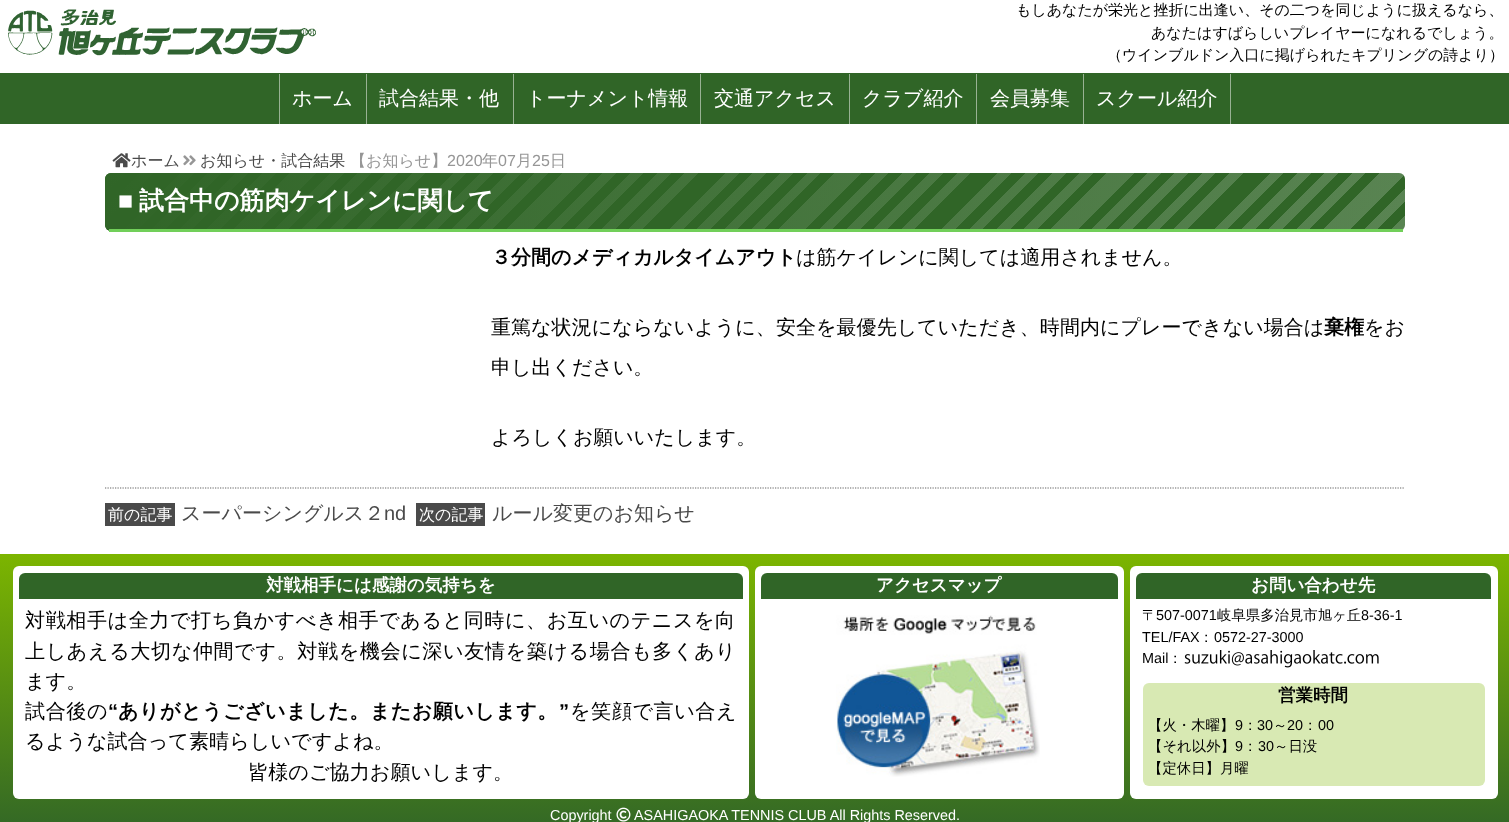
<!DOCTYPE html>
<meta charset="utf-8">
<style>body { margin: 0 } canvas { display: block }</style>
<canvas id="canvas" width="1509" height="822"></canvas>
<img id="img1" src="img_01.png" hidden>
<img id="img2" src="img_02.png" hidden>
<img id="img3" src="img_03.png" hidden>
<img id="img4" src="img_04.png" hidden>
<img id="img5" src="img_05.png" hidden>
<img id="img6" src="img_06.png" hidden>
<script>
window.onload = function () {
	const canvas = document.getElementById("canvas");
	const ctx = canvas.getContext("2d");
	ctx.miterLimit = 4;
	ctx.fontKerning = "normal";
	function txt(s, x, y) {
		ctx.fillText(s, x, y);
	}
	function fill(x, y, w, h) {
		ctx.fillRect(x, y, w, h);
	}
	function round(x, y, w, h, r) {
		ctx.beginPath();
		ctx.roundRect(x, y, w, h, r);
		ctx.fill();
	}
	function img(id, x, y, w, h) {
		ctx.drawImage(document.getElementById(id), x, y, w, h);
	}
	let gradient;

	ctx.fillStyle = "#FFFFFF";
	fill(0, 0, 1509, 822);
	ctx.fillStyle = "#306527";
	fill(0, 73, 1509, 51);
	img("img1", 8, 9, 308, 47);
	ctx.fillStyle = "#98B293";
	fill(366, 74, 1, 50);
	fill(279, 74, 1, 50);
	fill(513, 74, 1, 50);
	fill(700, 74, 1, 50);
	fill(849, 74, 1, 50);
	fill(976, 74, 1, 50);
	fill(1083, 74, 1, 50);
	fill(1230, 74, 1, 50);
	img("img2", 112, 153, 19, 15);
	img("img3", 183, 155, 13, 11);
	ctx.fillStyle = "#306527";
	round(105, 173, 1300, 58, 6);
	gradient = ctx.createLinearGradient(1094, 540, 413, -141);
	gradient.addColorStop(0, "rgba(255, 255, 255, 0.2)");
	gradient.addColorStop(0.01, "rgba(255, 255, 255, 0.2)");
	gradient.addColorStop(0.01, "rgba(255, 255, 255, 0)");
	gradient.addColorStop(0.02, "rgba(255, 255, 255, 0)");
	gradient.addColorStop(0.02, "rgba(255, 255, 255, 0.2)");
	gradient.addColorStop(0.03, "rgba(255, 255, 255, 0.2)");
	gradient.addColorStop(0.03, "rgba(255, 255, 255, 0)");
	gradient.addColorStop(0.04, "rgba(255, 255, 255, 0)");
	gradient.addColorStop(0.04, "rgba(255, 255, 255, 0.2)");
	gradient.addColorStop(0.05, "rgba(255, 255, 255, 0.2)");
	gradient.addColorStop(0.05, "rgba(255, 255, 255, 0)");
	gradient.addColorStop(0.05, "rgba(255, 255, 255, 0)");
	gradient.addColorStop(0.05, "rgba(255, 255, 255, 0.2)");
	gradient.addColorStop(0.06, "rgba(255, 255, 255, 0.2)");
	gradient.addColorStop(0.06, "rgba(255, 255, 255, 0)");
	gradient.addColorStop(0.07, "rgba(255, 255, 255, 0)");
	gradient.addColorStop(0.07, "rgba(255, 255, 255, 0.2)");
	gradient.addColorStop(0.08, "rgba(255, 255, 255, 0.2)");
	gradient.addColorStop(0.08, "rgba(255, 255, 255, 0)");
	gradient.addColorStop(0.09, "rgba(255, 255, 255, 0)");
	gradient.addColorStop(0.09, "rgba(255, 255, 255, 0.2)");
	gradient.addColorStop(0.1, "rgba(255, 255, 255, 0.2)");
	gradient.addColorStop(0.1, "rgba(255, 255, 255, 0)");
	gradient.addColorStop(0.11, "rgba(255, 255, 255, 0)");
	gradient.addColorStop(0.11, "rgba(255, 255, 255, 0.2)");
	gradient.addColorStop(0.12, "rgba(255, 255, 255, 0.2)");
	gradient.addColorStop(0.12, "rgba(255, 255, 255, 0)");
	gradient.addColorStop(0.13, "rgba(255, 255, 255, 0)");
	gradient.addColorStop(0.13, "rgba(255, 255, 255, 0.2)");
	gradient.addColorStop(0.14, "rgba(255, 255, 255, 0.2)");
	gradient.addColorStop(0.14, "rgba(255, 255, 255, 0)");
	gradient.addColorStop(0.15, "rgba(255, 255, 255, 0)");
	gradient.addColorStop(0.15, "rgba(255, 255, 255, 0.2)");
	gradient.addColorStop(0.15, "rgba(255, 255, 255, 0.2)");
	gradient.addColorStop(0.15, "rgba(255, 255, 255, 0)");
	gradient.addColorStop(0.16, "rgba(255, 255, 255, 0)");
	gradient.addColorStop(0.16, "rgba(255, 255, 255, 0.2)");
	gradient.addColorStop(0.17, "rgba(255, 255, 255, 0.2)");
	gradient.addColorStop(0.17, "rgba(255, 255, 255, 0)");
	gradient.addColorStop(0.18, "rgba(255, 255, 255, 0)");
	gradient.addColorStop(0.18, "rgba(255, 255, 255, 0.2)");
	gradient.addColorStop(0.19, "rgba(255, 255, 255, 0.2)");
	gradient.addColorStop(0.19, "rgba(255, 255, 255, 0)");
	gradient.addColorStop(0.2, "rgba(255, 255, 255, 0)");
	gradient.addColorStop(0.2, "rgba(255, 255, 255, 0.2)");
	gradient.addColorStop(0.21, "rgba(255, 255, 255, 0.2)");
	gradient.addColorStop(0.21, "rgba(255, 255, 255, 0)");
	gradient.addColorStop(0.22, "rgba(255, 255, 255, 0)");
	gradient.addColorStop(0.22, "rgba(255, 255, 255, 0.2)");
	gradient.addColorStop(0.23, "rgba(255, 255, 255, 0.2)");
	gradient.addColorStop(0.23, "rgba(255, 255, 255, 0)");
	gradient.addColorStop(0.24, "rgba(255, 255, 255, 0)");
	gradient.addColorStop(0.24, "rgba(255, 255, 255, 0.2)");
	gradient.addColorStop(0.25, "rgba(255, 255, 255, 0.2)");
	gradient.addColorStop(0.25, "rgba(255, 255, 255, 0)");
	gradient.addColorStop(0.25, "rgba(255, 255, 255, 0)");
	gradient.addColorStop(0.25, "rgba(255, 255, 255, 0.2)");
	gradient.addColorStop(0.26, "rgba(255, 255, 255, 0.2)");
	gradient.addColorStop(0.26, "rgba(255, 255, 255, 0)");
	gradient.addColorStop(0.27, "rgba(255, 255, 255, 0)");
	gradient.addColorStop(0.27, "rgba(255, 255, 255, 0.2)");
	gradient.addColorStop(0.28, "rgba(255, 255, 255, 0.2)");
	gradient.addColorStop(0.28, "rgba(255, 255, 255, 0)");
	gradient.addColorStop(0.29, "rgba(255, 255, 255, 0)");
	gradient.addColorStop(0.29, "rgba(255, 255, 255, 0.2)");
	gradient.addColorStop(0.3, "rgba(255, 255, 255, 0.2)");
	gradient.addColorStop(0.3, "rgba(255, 255, 255, 0)");
	gradient.addColorStop(0.31, "rgba(255, 255, 255, 0)");
	gradient.addColorStop(0.31, "rgba(255, 255, 255, 0.2)");
	gradient.addColorStop(0.32, "rgba(255, 255, 255, 0.2)");
	gradient.addColorStop(0.32, "rgba(255, 255, 255, 0)");
	gradient.addColorStop(0.33, "rgba(255, 255, 255, 0)");
	gradient.addColorStop(0.33, "rgba(255, 255, 255, 0.2)");
	gradient.addColorStop(0.34, "rgba(255, 255, 255, 0.2)");
	gradient.addColorStop(0.34, "rgba(255, 255, 255, 0)");
	gradient.addColorStop(0.35, "rgba(255, 255, 255, 0)");
	gradient.addColorStop(0.35, "rgba(255, 255, 255, 0.2)");
	gradient.addColorStop(0.35, "rgba(255, 255, 255, 0.2)");
	gradient.addColorStop(0.35, "rgba(255, 255, 255, 0)");
	gradient.addColorStop(0.36, "rgba(255, 255, 255, 0)");
	gradient.addColorStop(0.36, "rgba(255, 255, 255, 0.2)");
	gradient.addColorStop(0.37, "rgba(255, 255, 255, 0.2)");
	gradient.addColorStop(0.37, "rgba(255, 255, 255, 0)");
	gradient.addColorStop(0.38, "rgba(255, 255, 255, 0)");
	gradient.addColorStop(0.38, "rgba(255, 255, 255, 0.2)");
	gradient.addColorStop(0.39, "rgba(255, 255, 255, 0.2)");
	gradient.addColorStop(0.39, "rgba(255, 255, 255, 0)");
	gradient.addColorStop(0.4, "rgba(255, 255, 255, 0)");
	gradient.addColorStop(0.4, "rgba(255, 255, 255, 0.2)");
	gradient.addColorStop(0.41, "rgba(255, 255, 255, 0.2)");
	gradient.addColorStop(0.41, "rgba(255, 255, 255, 0)");
	gradient.addColorStop(0.42, "rgba(255, 255, 255, 0)");
	gradient.addColorStop(0.42, "rgba(255, 255, 255, 0.2)");
	gradient.addColorStop(0.43, "rgba(255, 255, 255, 0.2)");
	gradient.addColorStop(0.43, "rgba(255, 255, 255, 0)");
	gradient.addColorStop(0.44, "rgba(255, 255, 255, 0)");
	gradient.addColorStop(0.44, "rgba(255, 255, 255, 0.2)");
	gradient.addColorStop(0.45, "rgba(255, 255, 255, 0.2)");
	gradient.addColorStop(0.45, "rgba(255, 255, 255, 0)");
	gradient.addColorStop(0.45, "rgba(255, 255, 255, 0)");
	gradient.addColorStop(0.45, "rgba(255, 255, 255, 0.2)");
	gradient.addColorStop(0.46, "rgba(255, 255, 255, 0.2)");
	gradient.addColorStop(0.46, "rgba(255, 255, 255, 0)");
	gradient.addColorStop(0.47, "rgba(255, 255, 255, 0)");
	gradient.addColorStop(0.47, "rgba(255, 255, 255, 0.2)");
	gradient.addColorStop(0.48, "rgba(255, 255, 255, 0.2)");
	gradient.addColorStop(0.48, "rgba(255, 255, 255, 0)");
	gradient.addColorStop(0.49, "rgba(255, 255, 255, 0)");
	gradient.addColorStop(0.49, "rgba(255, 255, 255, 0.2)");
	gradient.addColorStop(0.5, "rgba(255, 255, 255, 0.2)");
	gradient.addColorStop(0.5, "rgba(255, 255, 255, 0)");
	gradient.addColorStop(0.51, "rgba(255, 255, 255, 0)");
	gradient.addColorStop(0.51, "rgba(255, 255, 255, 0.2)");
	gradient.addColorStop(0.52, "rgba(255, 255, 255, 0.2)");
	gradient.addColorStop(0.52, "rgba(255, 255, 255, 0)");
	gradient.addColorStop(0.53, "rgba(255, 255, 255, 0)");
	gradient.addColorStop(0.53, "rgba(255, 255, 255, 0.2)");
	gradient.addColorStop(0.54, "rgba(255, 255, 255, 0.2)");
	gradient.addColorStop(0.54, "rgba(255, 255, 255, 0)");
	gradient.addColorStop(0.55, "rgba(255, 255, 255, 0)");
	gradient.addColorStop(0.55, "rgba(255, 255, 255, 0.2)");
	gradient.addColorStop(0.55, "rgba(255, 255, 255, 0.2)");
	gradient.addColorStop(0.55, "rgba(255, 255, 255, 0)");
	gradient.addColorStop(0.56, "rgba(255, 255, 255, 0)");
	gradient.addColorStop(0.56, "rgba(255, 255, 255, 0.2)");
	gradient.addColorStop(0.57, "rgba(255, 255, 255, 0.2)");
	gradient.addColorStop(0.57, "rgba(255, 255, 255, 0)");
	gradient.addColorStop(0.58, "rgba(255, 255, 255, 0)");
	gradient.addColorStop(0.58, "rgba(255, 255, 255, 0.2)");
	gradient.addColorStop(0.59, "rgba(255, 255, 255, 0.2)");
	gradient.addColorStop(0.59, "rgba(255, 255, 255, 0)");
	gradient.addColorStop(0.6, "rgba(255, 255, 255, 0)");
	gradient.addColorStop(0.6, "rgba(255, 255, 255, 0.2)");
	gradient.addColorStop(0.61, "rgba(255, 255, 255, 0.2)");
	gradient.addColorStop(0.61, "rgba(255, 255, 255, 0)");
	gradient.addColorStop(0.62, "rgba(255, 255, 255, 0)");
	gradient.addColorStop(0.62, "rgba(255, 255, 255, 0.2)");
	gradient.addColorStop(0.63, "rgba(255, 255, 255, 0.2)");
	gradient.addColorStop(0.63, "rgba(255, 255, 255, 0)");
	gradient.addColorStop(0.64, "rgba(255, 255, 255, 0)");
	gradient.addColorStop(0.64, "rgba(255, 255, 255, 0.2)");
	gradient.addColorStop(0.65, "rgba(255, 255, 255, 0.2)");
	gradient.addColorStop(0.65, "rgba(255, 255, 255, 0)");
	gradient.addColorStop(0.65, "rgba(255, 255, 255, 0)");
	gradient.addColorStop(0.65, "rgba(255, 255, 255, 0.2)");
	gradient.addColorStop(0.66, "rgba(255, 255, 255, 0.2)");
	gradient.addColorStop(0.66, "rgba(255, 255, 255, 0)");
	gradient.addColorStop(0.67, "rgba(255, 255, 255, 0)");
	gradient.addColorStop(0.67, "rgba(255, 255, 255, 0.2)");
	gradient.addColorStop(0.68, "rgba(255, 255, 255, 0.2)");
	gradient.addColorStop(0.68, "rgba(255, 255, 255, 0)");
	gradient.addColorStop(0.69, "rgba(255, 255, 255, 0)");
	gradient.addColorStop(0.69, "rgba(255, 255, 255, 0.2)");
	gradient.addColorStop(0.7, "rgba(255, 255, 255, 0.2)");
	gradient.addColorStop(0.7, "rgba(255, 255, 255, 0)");
	gradient.addColorStop(0.71, "rgba(255, 255, 255, 0)");
	gradient.addColorStop(0.71, "rgba(255, 255, 255, 0.2)");
	gradient.addColorStop(0.72, "rgba(255, 255, 255, 0.2)");
	gradient.addColorStop(0.72, "rgba(255, 255, 255, 0)");
	gradient.addColorStop(0.73, "rgba(255, 255, 255, 0)");
	gradient.addColorStop(0.73, "rgba(255, 255, 255, 0.2)");
	gradient.addColorStop(0.74, "rgba(255, 255, 255, 0.2)");
	gradient.addColorStop(0.74, "rgba(255, 255, 255, 0)");
	gradient.addColorStop(0.75, "rgba(255, 255, 255, 0)");
	gradient.addColorStop(0.75, "rgba(255, 255, 255, 0.2)");
	gradient.addColorStop(0.75, "rgba(255, 255, 255, 0.2)");
	gradient.addColorStop(0.75, "rgba(255, 255, 255, 0)");
	gradient.addColorStop(0.76, "rgba(255, 255, 255, 0)");
	gradient.addColorStop(0.76, "rgba(255, 255, 255, 0.2)");
	gradient.addColorStop(0.77, "rgba(255, 255, 255, 0.2)");
	gradient.addColorStop(0.77, "rgba(255, 255, 255, 0)");
	gradient.addColorStop(0.78, "rgba(255, 255, 255, 0)");
	gradient.addColorStop(0.78, "rgba(255, 255, 255, 0.2)");
	gradient.addColorStop(0.79, "rgba(255, 255, 255, 0.2)");
	gradient.addColorStop(0.79, "rgba(255, 255, 255, 0)");
	gradient.addColorStop(0.8, "rgba(255, 255, 255, 0)");
	gradient.addColorStop(0.8, "rgba(255, 255, 255, 0.2)");
	gradient.addColorStop(0.81, "rgba(255, 255, 255, 0.2)");
	gradient.addColorStop(0.81, "rgba(255, 255, 255, 0)");
	gradient.addColorStop(0.82, "rgba(255, 255, 255, 0)");
	gradient.addColorStop(0.82, "rgba(255, 255, 255, 0.2)");
	gradient.addColorStop(0.83, "rgba(255, 255, 255, 0.2)");
	gradient.addColorStop(0.83, "rgba(255, 255, 255, 0)");
	gradient.addColorStop(0.84, "rgba(255, 255, 255, 0)");
	gradient.addColorStop(0.84, "rgba(255, 255, 255, 0.2)");
	gradient.addColorStop(0.85, "rgba(255, 255, 255, 0.2)");
	gradient.addColorStop(0.85, "rgba(255, 255, 255, 0)");
	gradient.addColorStop(0.85, "rgba(255, 255, 255, 0)");
	gradient.addColorStop(0.85, "rgba(255, 255, 255, 0.2)");
	gradient.addColorStop(0.86, "rgba(255, 255, 255, 0.2)");
	gradient.addColorStop(0.86, "rgba(255, 255, 255, 0)");
	gradient.addColorStop(0.87, "rgba(255, 255, 255, 0)");
	gradient.addColorStop(0.87, "rgba(255, 255, 255, 0.2)");
	gradient.addColorStop(0.88, "rgba(255, 255, 255, 0.2)");
	gradient.addColorStop(0.88, "rgba(255, 255, 255, 0)");
	gradient.addColorStop(0.89, "rgba(255, 255, 255, 0)");
	gradient.addColorStop(0.89, "rgba(255, 255, 255, 0.2)");
	gradient.addColorStop(0.9, "rgba(255, 255, 255, 0.2)");
	gradient.addColorStop(0.9, "rgba(255, 255, 255, 0)");
	gradient.addColorStop(0.91, "rgba(255, 255, 255, 0)");
	gradient.addColorStop(0.91, "rgba(255, 255, 255, 0.2)");
	gradient.addColorStop(0.92, "rgba(255, 255, 255, 0.2)");
	gradient.addColorStop(0.92, "rgba(255, 255, 255, 0)");
	gradient.addColorStop(0.93, "rgba(255, 255, 255, 0)");
	gradient.addColorStop(0.93, "rgba(255, 255, 255, 0.2)");
	gradient.addColorStop(0.94, "rgba(255, 255, 255, 0.2)");
	gradient.addColorStop(0.94, "rgba(255, 255, 255, 0)");
	gradient.addColorStop(0.95, "rgba(255, 255, 255, 0)");
	gradient.addColorStop(0.95, "rgba(255, 255, 255, 0.2)");
	gradient.addColorStop(0.95, "rgba(255, 255, 255, 0.2)");
	gradient.addColorStop(0.95, "rgba(255, 255, 255, 0)");
	gradient.addColorStop(0.96, "rgba(255, 255, 255, 0)");
	gradient.addColorStop(0.96, "rgba(255, 255, 255, 0.2)");
	gradient.addColorStop(0.97, "rgba(255, 255, 255, 0.2)");
	gradient.addColorStop(0.97, "rgba(255, 255, 255, 0)");
	gradient.addColorStop(0.98, "rgba(255, 255, 255, 0)");
	gradient.addColorStop(0.98, "rgba(255, 255, 255, 0.2)");
	gradient.addColorStop(0.99, "rgba(255, 255, 255, 0.2)");
	gradient.addColorStop(0.99, "rgba(255, 255, 255, 0)");
	gradient.addColorStop(1, "rgba(0, 0, 0, 0)");
	ctx.fillStyle = gradient;
	ctx.beginPath();
	ctx.roundRect(105, 173, 1300, 56, [6, 6, 0, 0]);
	ctx.fill();
	ctx.save();
	ctx.beginPath();
	ctx.roundRect(105, 173, 1300, 58, 6);
	ctx.clip();
	gradient = ctx.createLinearGradient(1094, 596, 413, -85);
	gradient.addColorStop(0, "rgba(255, 255, 255, 0.2)");
	gradient.addColorStop(0.01, "rgba(255, 255, 255, 0.2)");
	gradient.addColorStop(0.01, "rgba(255, 255, 255, 0)");
	gradient.addColorStop(0.02, "rgba(255, 255, 255, 0)");
	gradient.addColorStop(0.02, "rgba(255, 255, 255, 0.2)");
	gradient.addColorStop(0.03, "rgba(255, 255, 255, 0.2)");
	gradient.addColorStop(0.03, "rgba(255, 255, 255, 0)");
	gradient.addColorStop(0.04, "rgba(255, 255, 255, 0)");
	gradient.addColorStop(0.04, "rgba(255, 255, 255, 0.2)");
	gradient.addColorStop(0.05, "rgba(255, 255, 255, 0.2)");
	gradient.addColorStop(0.05, "rgba(255, 255, 255, 0)");
	gradient.addColorStop(0.05, "rgba(255, 255, 255, 0)");
	gradient.addColorStop(0.05, "rgba(255, 255, 255, 0.2)");
	gradient.addColorStop(0.06, "rgba(255, 255, 255, 0.2)");
	gradient.addColorStop(0.06, "rgba(255, 255, 255, 0)");
	gradient.addColorStop(0.07, "rgba(255, 255, 255, 0)");
	gradient.addColorStop(0.07, "rgba(255, 255, 255, 0.2)");
	gradient.addColorStop(0.08, "rgba(255, 255, 255, 0.2)");
	gradient.addColorStop(0.08, "rgba(255, 255, 255, 0)");
	gradient.addColorStop(0.09, "rgba(255, 255, 255, 0)");
	gradient.addColorStop(0.09, "rgba(255, 255, 255, 0.2)");
	gradient.addColorStop(0.1, "rgba(255, 255, 255, 0.2)");
	gradient.addColorStop(0.1, "rgba(255, 255, 255, 0)");
	gradient.addColorStop(0.11, "rgba(255, 255, 255, 0)");
	gradient.addColorStop(0.11, "rgba(255, 255, 255, 0.2)");
	gradient.addColorStop(0.12, "rgba(255, 255, 255, 0.2)");
	gradient.addColorStop(0.12, "rgba(255, 255, 255, 0)");
	gradient.addColorStop(0.13, "rgba(255, 255, 255, 0)");
	gradient.addColorStop(0.13, "rgba(255, 255, 255, 0.2)");
	gradient.addColorStop(0.14, "rgba(255, 255, 255, 0.2)");
	gradient.addColorStop(0.14, "rgba(255, 255, 255, 0)");
	gradient.addColorStop(0.15, "rgba(255, 255, 255, 0)");
	gradient.addColorStop(0.15, "rgba(255, 255, 255, 0.2)");
	gradient.addColorStop(0.15, "rgba(255, 255, 255, 0.2)");
	gradient.addColorStop(0.15, "rgba(255, 255, 255, 0)");
	gradient.addColorStop(0.16, "rgba(255, 255, 255, 0)");
	gradient.addColorStop(0.16, "rgba(255, 255, 255, 0.2)");
	gradient.addColorStop(0.17, "rgba(255, 255, 255, 0.2)");
	gradient.addColorStop(0.17, "rgba(255, 255, 255, 0)");
	gradient.addColorStop(0.18, "rgba(255, 255, 255, 0)");
	gradient.addColorStop(0.18, "rgba(255, 255, 255, 0.2)");
	gradient.addColorStop(0.19, "rgba(255, 255, 255, 0.2)");
	gradient.addColorStop(0.19, "rgba(255, 255, 255, 0)");
	gradient.addColorStop(0.2, "rgba(255, 255, 255, 0)");
	gradient.addColorStop(0.2, "rgba(255, 255, 255, 0.2)");
	gradient.addColorStop(0.21, "rgba(255, 255, 255, 0.2)");
	gradient.addColorStop(0.21, "rgba(255, 255, 255, 0)");
	gradient.addColorStop(0.22, "rgba(255, 255, 255, 0)");
	gradient.addColorStop(0.22, "rgba(255, 255, 255, 0.2)");
	gradient.addColorStop(0.23, "rgba(255, 255, 255, 0.2)");
	gradient.addColorStop(0.23, "rgba(255, 255, 255, 0)");
	gradient.addColorStop(0.24, "rgba(255, 255, 255, 0)");
	gradient.addColorStop(0.24, "rgba(255, 255, 255, 0.2)");
	gradient.addColorStop(0.25, "rgba(255, 255, 255, 0.2)");
	gradient.addColorStop(0.25, "rgba(255, 255, 255, 0)");
	gradient.addColorStop(0.25, "rgba(255, 255, 255, 0)");
	gradient.addColorStop(0.25, "rgba(255, 255, 255, 0.2)");
	gradient.addColorStop(0.26, "rgba(255, 255, 255, 0.2)");
	gradient.addColorStop(0.26, "rgba(255, 255, 255, 0)");
	gradient.addColorStop(0.27, "rgba(255, 255, 255, 0)");
	gradient.addColorStop(0.27, "rgba(255, 255, 255, 0.2)");
	gradient.addColorStop(0.28, "rgba(255, 255, 255, 0.2)");
	gradient.addColorStop(0.28, "rgba(255, 255, 255, 0)");
	gradient.addColorStop(0.29, "rgba(255, 255, 255, 0)");
	gradient.addColorStop(0.29, "rgba(255, 255, 255, 0.2)");
	gradient.addColorStop(0.3, "rgba(255, 255, 255, 0.2)");
	gradient.addColorStop(0.3, "rgba(255, 255, 255, 0)");
	gradient.addColorStop(0.31, "rgba(255, 255, 255, 0)");
	gradient.addColorStop(0.31, "rgba(255, 255, 255, 0.2)");
	gradient.addColorStop(0.32, "rgba(255, 255, 255, 0.2)");
	gradient.addColorStop(0.32, "rgba(255, 255, 255, 0)");
	gradient.addColorStop(0.33, "rgba(255, 255, 255, 0)");
	gradient.addColorStop(0.33, "rgba(255, 255, 255, 0.2)");
	gradient.addColorStop(0.34, "rgba(255, 255, 255, 0.2)");
	gradient.addColorStop(0.34, "rgba(255, 255, 255, 0)");
	gradient.addColorStop(0.35, "rgba(255, 255, 255, 0)");
	gradient.addColorStop(0.35, "rgba(255, 255, 255, 0.2)");
	gradient.addColorStop(0.35, "rgba(255, 255, 255, 0.2)");
	gradient.addColorStop(0.35, "rgba(255, 255, 255, 0)");
	gradient.addColorStop(0.36, "rgba(255, 255, 255, 0)");
	gradient.addColorStop(0.36, "rgba(255, 255, 255, 0.2)");
	gradient.addColorStop(0.37, "rgba(255, 255, 255, 0.2)");
	gradient.addColorStop(0.37, "rgba(255, 255, 255, 0)");
	gradient.addColorStop(0.38, "rgba(255, 255, 255, 0)");
	gradient.addColorStop(0.38, "rgba(255, 255, 255, 0.2)");
	gradient.addColorStop(0.39, "rgba(255, 255, 255, 0.2)");
	gradient.addColorStop(0.39, "rgba(255, 255, 255, 0)");
	gradient.addColorStop(0.4, "rgba(255, 255, 255, 0)");
	gradient.addColorStop(0.4, "rgba(255, 255, 255, 0.2)");
	gradient.addColorStop(0.41, "rgba(255, 255, 255, 0.2)");
	gradient.addColorStop(0.41, "rgba(255, 255, 255, 0)");
	gradient.addColorStop(0.42, "rgba(255, 255, 255, 0)");
	gradient.addColorStop(0.42, "rgba(255, 255, 255, 0.2)");
	gradient.addColorStop(0.43, "rgba(255, 255, 255, 0.2)");
	gradient.addColorStop(0.43, "rgba(255, 255, 255, 0)");
	gradient.addColorStop(0.44, "rgba(255, 255, 255, 0)");
	gradient.addColorStop(0.44, "rgba(255, 255, 255, 0.2)");
	gradient.addColorStop(0.45, "rgba(255, 255, 255, 0.2)");
	gradient.addColorStop(0.45, "rgba(255, 255, 255, 0)");
	gradient.addColorStop(0.45, "rgba(255, 255, 255, 0)");
	gradient.addColorStop(0.45, "rgba(255, 255, 255, 0.2)");
	gradient.addColorStop(0.46, "rgba(255, 255, 255, 0.2)");
	gradient.addColorStop(0.46, "rgba(255, 255, 255, 0)");
	gradient.addColorStop(0.47, "rgba(255, 255, 255, 0)");
	gradient.addColorStop(0.47, "rgba(255, 255, 255, 0.2)");
	gradient.addColorStop(0.48, "rgba(255, 255, 255, 0.2)");
	gradient.addColorStop(0.48, "rgba(255, 255, 255, 0)");
	gradient.addColorStop(0.49, "rgba(255, 255, 255, 0)");
	gradient.addColorStop(0.49, "rgba(255, 255, 255, 0.2)");
	gradient.addColorStop(0.5, "rgba(255, 255, 255, 0.2)");
	gradient.addColorStop(0.5, "rgba(255, 255, 255, 0)");
	gradient.addColorStop(0.51, "rgba(255, 255, 255, 0)");
	gradient.addColorStop(0.51, "rgba(255, 255, 255, 0.2)");
	gradient.addColorStop(0.52, "rgba(255, 255, 255, 0.2)");
	gradient.addColorStop(0.52, "rgba(255, 255, 255, 0)");
	gradient.addColorStop(0.53, "rgba(255, 255, 255, 0)");
	gradient.addColorStop(0.53, "rgba(255, 255, 255, 0.2)");
	gradient.addColorStop(0.54, "rgba(255, 255, 255, 0.2)");
	gradient.addColorStop(0.54, "rgba(255, 255, 255, 0)");
	gradient.addColorStop(0.55, "rgba(255, 255, 255, 0)");
	gradient.addColorStop(0.55, "rgba(255, 255, 255, 0.2)");
	gradient.addColorStop(0.55, "rgba(255, 255, 255, 0.2)");
	gradient.addColorStop(0.55, "rgba(255, 255, 255, 0)");
	gradient.addColorStop(0.56, "rgba(255, 255, 255, 0)");
	gradient.addColorStop(0.56, "rgba(255, 255, 255, 0.2)");
	gradient.addColorStop(0.57, "rgba(255, 255, 255, 0.2)");
	gradient.addColorStop(0.57, "rgba(255, 255, 255, 0)");
	gradient.addColorStop(0.58, "rgba(255, 255, 255, 0)");
	gradient.addColorStop(0.58, "rgba(255, 255, 255, 0.2)");
	gradient.addColorStop(0.59, "rgba(255, 255, 255, 0.2)");
	gradient.addColorStop(0.59, "rgba(255, 255, 255, 0)");
	gradient.addColorStop(0.6, "rgba(255, 255, 255, 0)");
	gradient.addColorStop(0.6, "rgba(255, 255, 255, 0.2)");
	gradient.addColorStop(0.61, "rgba(255, 255, 255, 0.2)");
	gradient.addColorStop(0.61, "rgba(255, 255, 255, 0)");
	gradient.addColorStop(0.62, "rgba(255, 255, 255, 0)");
	gradient.addColorStop(0.62, "rgba(255, 255, 255, 0.2)");
	gradient.addColorStop(0.63, "rgba(255, 255, 255, 0.2)");
	gradient.addColorStop(0.63, "rgba(255, 255, 255, 0)");
	gradient.addColorStop(0.64, "rgba(255, 255, 255, 0)");
	gradient.addColorStop(0.64, "rgba(255, 255, 255, 0.2)");
	gradient.addColorStop(0.65, "rgba(255, 255, 255, 0.2)");
	gradient.addColorStop(0.65, "rgba(255, 255, 255, 0)");
	gradient.addColorStop(0.65, "rgba(255, 255, 255, 0)");
	gradient.addColorStop(0.65, "rgba(255, 255, 255, 0.2)");
	gradient.addColorStop(0.66, "rgba(255, 255, 255, 0.2)");
	gradient.addColorStop(0.66, "rgba(255, 255, 255, 0)");
	gradient.addColorStop(0.67, "rgba(255, 255, 255, 0)");
	gradient.addColorStop(0.67, "rgba(255, 255, 255, 0.2)");
	gradient.addColorStop(0.68, "rgba(255, 255, 255, 0.2)");
	gradient.addColorStop(0.68, "rgba(255, 255, 255, 0)");
	gradient.addColorStop(0.69, "rgba(255, 255, 255, 0)");
	gradient.addColorStop(0.69, "rgba(255, 255, 255, 0.2)");
	gradient.addColorStop(0.7, "rgba(255, 255, 255, 0.2)");
	gradient.addColorStop(0.7, "rgba(255, 255, 255, 0)");
	gradient.addColorStop(0.71, "rgba(255, 255, 255, 0)");
	gradient.addColorStop(0.71, "rgba(255, 255, 255, 0.2)");
	gradient.addColorStop(0.72, "rgba(255, 255, 255, 0.2)");
	gradient.addColorStop(0.72, "rgba(255, 255, 255, 0)");
	gradient.addColorStop(0.73, "rgba(255, 255, 255, 0)");
	gradient.addColorStop(0.73, "rgba(255, 255, 255, 0.2)");
	gradient.addColorStop(0.74, "rgba(255, 255, 255, 0.2)");
	gradient.addColorStop(0.74, "rgba(255, 255, 255, 0)");
	gradient.addColorStop(0.75, "rgba(255, 255, 255, 0)");
	gradient.addColorStop(0.75, "rgba(255, 255, 255, 0.2)");
	gradient.addColorStop(0.75, "rgba(255, 255, 255, 0.2)");
	gradient.addColorStop(0.75, "rgba(255, 255, 255, 0)");
	gradient.addColorStop(0.76, "rgba(255, 255, 255, 0)");
	gradient.addColorStop(0.76, "rgba(255, 255, 255, 0.2)");
	gradient.addColorStop(0.77, "rgba(255, 255, 255, 0.2)");
	gradient.addColorStop(0.77, "rgba(255, 255, 255, 0)");
	gradient.addColorStop(0.78, "rgba(255, 255, 255, 0)");
	gradient.addColorStop(0.78, "rgba(255, 255, 255, 0.2)");
	gradient.addColorStop(0.79, "rgba(255, 255, 255, 0.2)");
	gradient.addColorStop(0.79, "rgba(255, 255, 255, 0)");
	gradient.addColorStop(0.8, "rgba(255, 255, 255, 0)");
	gradient.addColorStop(0.8, "rgba(255, 255, 255, 0.2)");
	gradient.addColorStop(0.81, "rgba(255, 255, 255, 0.2)");
	gradient.addColorStop(0.81, "rgba(255, 255, 255, 0)");
	gradient.addColorStop(0.82, "rgba(255, 255, 255, 0)");
	gradient.addColorStop(0.82, "rgba(255, 255, 255, 0.2)");
	gradient.addColorStop(0.83, "rgba(255, 255, 255, 0.2)");
	gradient.addColorStop(0.83, "rgba(255, 255, 255, 0)");
	gradient.addColorStop(0.84, "rgba(255, 255, 255, 0)");
	gradient.addColorStop(0.84, "rgba(255, 255, 255, 0.2)");
	gradient.addColorStop(0.85, "rgba(255, 255, 255, 0.2)");
	gradient.addColorStop(0.85, "rgba(255, 255, 255, 0)");
	gradient.addColorStop(0.85, "rgba(255, 255, 255, 0)");
	gradient.addColorStop(0.85, "rgba(255, 255, 255, 0.2)");
	gradient.addColorStop(0.86, "rgba(255, 255, 255, 0.2)");
	gradient.addColorStop(0.86, "rgba(255, 255, 255, 0)");
	gradient.addColorStop(0.87, "rgba(255, 255, 255, 0)");
	gradient.addColorStop(0.87, "rgba(255, 255, 255, 0.2)");
	gradient.addColorStop(0.88, "rgba(255, 255, 255, 0.2)");
	gradient.addColorStop(0.88, "rgba(255, 255, 255, 0)");
	gradient.addColorStop(0.89, "rgba(255, 255, 255, 0)");
	gradient.addColorStop(0.89, "rgba(255, 255, 255, 0.2)");
	gradient.addColorStop(0.9, "rgba(255, 255, 255, 0.2)");
	gradient.addColorStop(0.9, "rgba(255, 255, 255, 0)");
	gradient.addColorStop(0.91, "rgba(255, 255, 255, 0)");
	gradient.addColorStop(0.91, "rgba(255, 255, 255, 0.2)");
	gradient.addColorStop(0.92, "rgba(255, 255, 255, 0.2)");
	gradient.addColorStop(0.92, "rgba(255, 255, 255, 0)");
	gradient.addColorStop(0.93, "rgba(255, 255, 255, 0)");
	gradient.addColorStop(0.93, "rgba(255, 255, 255, 0.2)");
	gradient.addColorStop(0.94, "rgba(255, 255, 255, 0.2)");
	gradient.addColorStop(0.94, "rgba(255, 255, 255, 0)");
	gradient.addColorStop(0.95, "rgba(255, 255, 255, 0)");
	gradient.addColorStop(0.95, "rgba(255, 255, 255, 0.2)");
	gradient.addColorStop(0.95, "rgba(255, 255, 255, 0.2)");
	gradient.addColorStop(0.95, "rgba(255, 255, 255, 0)");
	gradient.addColorStop(0.96, "rgba(255, 255, 255, 0)");
	gradient.addColorStop(0.96, "rgba(255, 255, 255, 0.2)");
	gradient.addColorStop(0.97, "rgba(255, 255, 255, 0.2)");
	gradient.addColorStop(0.97, "rgba(255, 255, 255, 0)");
	gradient.addColorStop(0.98, "rgba(255, 255, 255, 0)");
	gradient.addColorStop(0.98, "rgba(255, 255, 255, 0.2)");
	gradient.addColorStop(0.99, "rgba(255, 255, 255, 0.2)");
	gradient.addColorStop(0.99, "rgba(255, 255, 255, 0)");
	gradient.addColorStop(1, "rgba(0, 0, 0, 0)");
	ctx.fillStyle = gradient;
	fill(1403, 229, 2, 1);
	ctx.restore();
	gradient = ctx.createLinearGradient(105, 201, 1405, 201);
	gradient.addColorStop(0, "#306527");
	gradient.addColorStop(1, "rgba(48, 101, 39, 0)");
	ctx.fillStyle = gradient;
	round(105, 173, 1300, 58, 6);
	ctx.fillStyle = "#71CF59";
	fill(109, 229, 1294, 3);
	ctx.beginPath();
	ctx.moveTo(105, 488);
	ctx.lineTo(1405, 488);
	ctx.strokeStyle = "#646464";
	ctx.lineWidth = 1.2;
	ctx.setLineDash([1.25, 1.25]);
	ctx.stroke();
	ctx.fillStyle = "#4A4A4A";
	fill(105, 503, 70, 23);
	fill(416, 503, 69, 23);
	gradient = ctx.createLinearGradient(755, 554, 755, 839);
	gradient.addColorStop(0, "#7CB500");
	gradient.addColorStop(1, "#306527");
	ctx.fillStyle = gradient;
	fill(0, 554, 1509, 268);
	ctx.fillStyle = "#FFFFFF";
	round(13, 566, 736, 233, 6);
	ctx.fillStyle = "#306527";
	ctx.beginPath();
	ctx.roundRect(19, 573, 724, 26, [6, 6, 0, 0]);
	ctx.fill();
	ctx.fillStyle = "#FFFFFF";
	round(755, 566, 369, 233, 6);
	ctx.fillStyle = "#306527";
	ctx.beginPath();
	ctx.roundRect(761, 573, 357, 26, [6, 6, 0, 0]);
	ctx.fill();
	img("img4", 836, 615, 204, 162);
	ctx.fillStyle = "#FFFFFF";
	round(1130, 566, 368, 233, 6);
	ctx.fillStyle = "#306527";
	ctx.beginPath();
	ctx.roundRect(1136, 573, 355, 26, [6, 6, 0, 0]);
	ctx.fill();
	img("img5", 1184, 650, 195, 18);
	ctx.fillStyle = "#D8E9B3";
	round(1143, 683, 342, 103, 6);
	img("img6", 616, 807, 15, 15);
	ctx.font = "500 15px WenQuanYi Zen Hei";
	ctx.fillStyle = "#000000";
	txt("もしあなたが栄光と挫折に出逢い、その二つを同じように扱えるなら、", 1016, 15);
	txt("あなたはすばらしいプレイヤーになれるでしょう。", 1151, 38);
	txt("（ウインブルドン入口に掲げられたキプリングの詩より）", 1107, 60);
	ctx.font = "500 20px WenQuanYi Zen Hei";
	ctx.fillStyle = "#FFFFFF";
	txt("ホーム", 292, 105);
	txt("試合結果・他", 379, 105);
	txt("トーナメント情報", 526, 105);
	txt("交通アクセス", 714, 105);
	txt("クラブ紹介", 862, 105);
	txt("会員募集", 990, 105);
	txt("スクール紹介", 1096, 105);
	ctx.font = "500 16px WenQuanYi Zen Hei";
	ctx.fillStyle = "#4A4A4A";
	txt("ホーム", 131, 166);
	txt("お知らせ・試合結果", 200, 166);
	ctx.fillStyle = "#969696";
	txt("【お知らせ】", 350, 166);
	ctx.font = "16px Liberation Sans";
	txt("2020", 447, 166);
	ctx.font = "500 16px WenQuanYi Zen Hei";
	txt("年", 482, 166);
	ctx.font = "16px Liberation Sans";
	txt("07", 498, 166);
	ctx.font = "500 16px WenQuanYi Zen Hei";
	txt("月", 516, 166);
	ctx.font = "16px Liberation Sans";
	txt("25", 532, 166);
	ctx.font = "500 16px WenQuanYi Zen Hei";
	txt("日", 550, 166);
	ctx.font = "bold 25px Liberation Sans";
	ctx.fillStyle = "#FFFFFF";
	txt("■", 118, 209);
	ctx.font = "bold 25px WenQuanYi Zen Hei";
	txt("試合中の筋肉ケイレンに関して", 139, 209);
	ctx.font = "bold 20px WenQuanYi Zen Hei";
	ctx.fillStyle = "#000000";
	txt("３分間のメディカルタイムアウト", 491, 264);
	ctx.font = "500 20px WenQuanYi Zen Hei";
	txt("は筋ケイレンに関しては適用されません。", 796, 264);
	ctx.letterSpacing = "0.05px";
	txt("重篤な状況にならないように、安全を最優先していただき、時間内にプレーできない場合は", 491, 334);
	ctx.letterSpacing = "0px";
	ctx.font = "bold 20px WenQuanYi Zen Hei";
	txt("棄権", 1324, 334);
	ctx.font = "500 20px WenQuanYi Zen Hei";
	txt("をお", 1364, 334);
	txt("申し出ください。", 491, 374);
	txt("よろしくお願いいたします。", 491, 444);
	ctx.font = "500 16px WenQuanYi Zen Hei";
	ctx.fillStyle = "#FFFFFF";
	txt("前の記事", 108, 520);
	ctx.font = "500 20px WenQuanYi Zen Hei";
	ctx.fillStyle = "#4A4A4A";
	txt("スーパーシングルス２", 181, 520);
	ctx.font = "20px Liberation Sans";
	txt("nd", 384, 520);
	ctx.font = "500 16px WenQuanYi Zen Hei";
	ctx.fillStyle = "#FFFFFF";
	txt("次の記事", 419, 520);
	ctx.font = "500 20px WenQuanYi Zen Hei";
	ctx.fillStyle = "#4A4A4A";
	txt("ルール変更のお知らせ", 492, 520);
	ctx.font = "bold 17.5px WenQuanYi Zen Hei";
	ctx.fillStyle = "#FFFFFF";
	txt("対戦相手には感謝の気持ちを", 266, 591);
	ctx.letterSpacing = "0.5px";
	ctx.font = "500 20.15px WenQuanYi Zen Hei";
	ctx.fillStyle = "#000000";
	txt("対戦相手は全力で打ち負かすべき相手であると同時に、お互いのテニスを向", 25, 627);
	ctx.letterSpacing = "0.55px";
	txt("上しあえる大切な仲間です。対戦を機会に深い友情を築ける場合も多くあり", 25, 658);
	ctx.letterSpacing = "0px";
	txt("ます。", 25, 688);
	ctx.letterSpacing = "0.5px";
	txt("試合後の", 25, 718);
	ctx.letterSpacing = "0.4px";
	ctx.font = "bold 20.15px Liberation Sans";
	txt("“", 108, 718);
	ctx.font = "bold 20.15px WenQuanYi Zen Hei";
	txt("ありがとうございました。またお願いします。", 118, 718);
	ctx.font = "bold 20.15px Liberation Sans";
	txt("”", 559, 718);
	ctx.letterSpacing = "0.5px";
	ctx.font = "500 20.15px WenQuanYi Zen Hei";
	txt("を笑顔で言い合え", 570, 718);
	ctx.letterSpacing = "0px";
	txt("るような試合って素晴らしいですよね。", 25, 748);
	txt("皆様のご協力お願いします。", 248, 779);
	ctx.font = "bold 17.5px WenQuanYi Zen Hei";
	ctx.fillStyle = "#FFFFFF";
	txt("アクセスマップ", 876, 591);
	txt("お問い合わせ先", 1251, 591);
	ctx.font = "500 14.4px WenQuanYi Zen Hei";
	ctx.fillStyle = "#000000";
	txt("〒", 1142, 620);
	ctx.font = "14.4px Liberation Sans";
	txt("507-0071", 1156, 620);
	ctx.font = "500 14.4px WenQuanYi Zen Hei";
	txt("岐阜県多治見市旭ヶ丘", 1217, 620);
	ctx.font = "14.4px Liberation Sans";
	txt("8-36-1", 1361, 620);
	txt("TEL/FAX", 1142, 642);
	ctx.font = "500 14.4px WenQuanYi Zen Hei";
	txt("：", 1199, 642);
	ctx.font = "14.4px Liberation Sans";
	txt("0572-27-3000", 1214, 642);
	txt("Mail", 1142, 663);
	ctx.font = "500 14.4px WenQuanYi Zen Hei";
	txt("：", 1168, 663);
	ctx.font = "bold 17.5px WenQuanYi Zen Hei";
	txt("営業時間", 1278, 701);
	ctx.font = "500 14.4px WenQuanYi Zen Hei";
	txt("【火・木曜】", 1148, 730);
	ctx.font = "14.4px Liberation Sans";
	txt("9", 1235, 730);
	ctx.font = "500 14.4px WenQuanYi Zen Hei";
	txt("：", 1243, 730);
	ctx.font = "14.4px Liberation Sans";
	txt("30", 1257, 730);
	ctx.font = "500 14.4px WenQuanYi Zen Hei";
	txt("～", 1273, 730);
	ctx.font = "14.4px Liberation Sans";
	txt("20", 1287, 730);
	ctx.font = "500 14.4px WenQuanYi Zen Hei";
	txt("：", 1303, 730);
	ctx.font = "14.4px Liberation Sans";
	txt("00", 1318, 730);
	ctx.font = "500 14.4px WenQuanYi Zen Hei";
	txt("【それ以外】", 1148, 751);
	ctx.font = "14.4px Liberation Sans";
	txt("9", 1235, 751);
	ctx.font = "500 14.4px WenQuanYi Zen Hei";
	txt("：", 1243, 751);
	ctx.font = "14.4px Liberation Sans";
	txt("30", 1258, 751);
	ctx.font = "500 14.4px WenQuanYi Zen Hei";
	txt("～日没", 1274, 751);
	txt("【定休日】月曜", 1148, 773);
	ctx.font = "14.4px Liberation Sans";
	ctx.fillStyle = "#FFFFFF";
	txt("Copyright", 550, 820);
	txt("ASAHIGAOKA TENNIS CLUB All Rights Reserved.", 634, 820);
};
</script>
